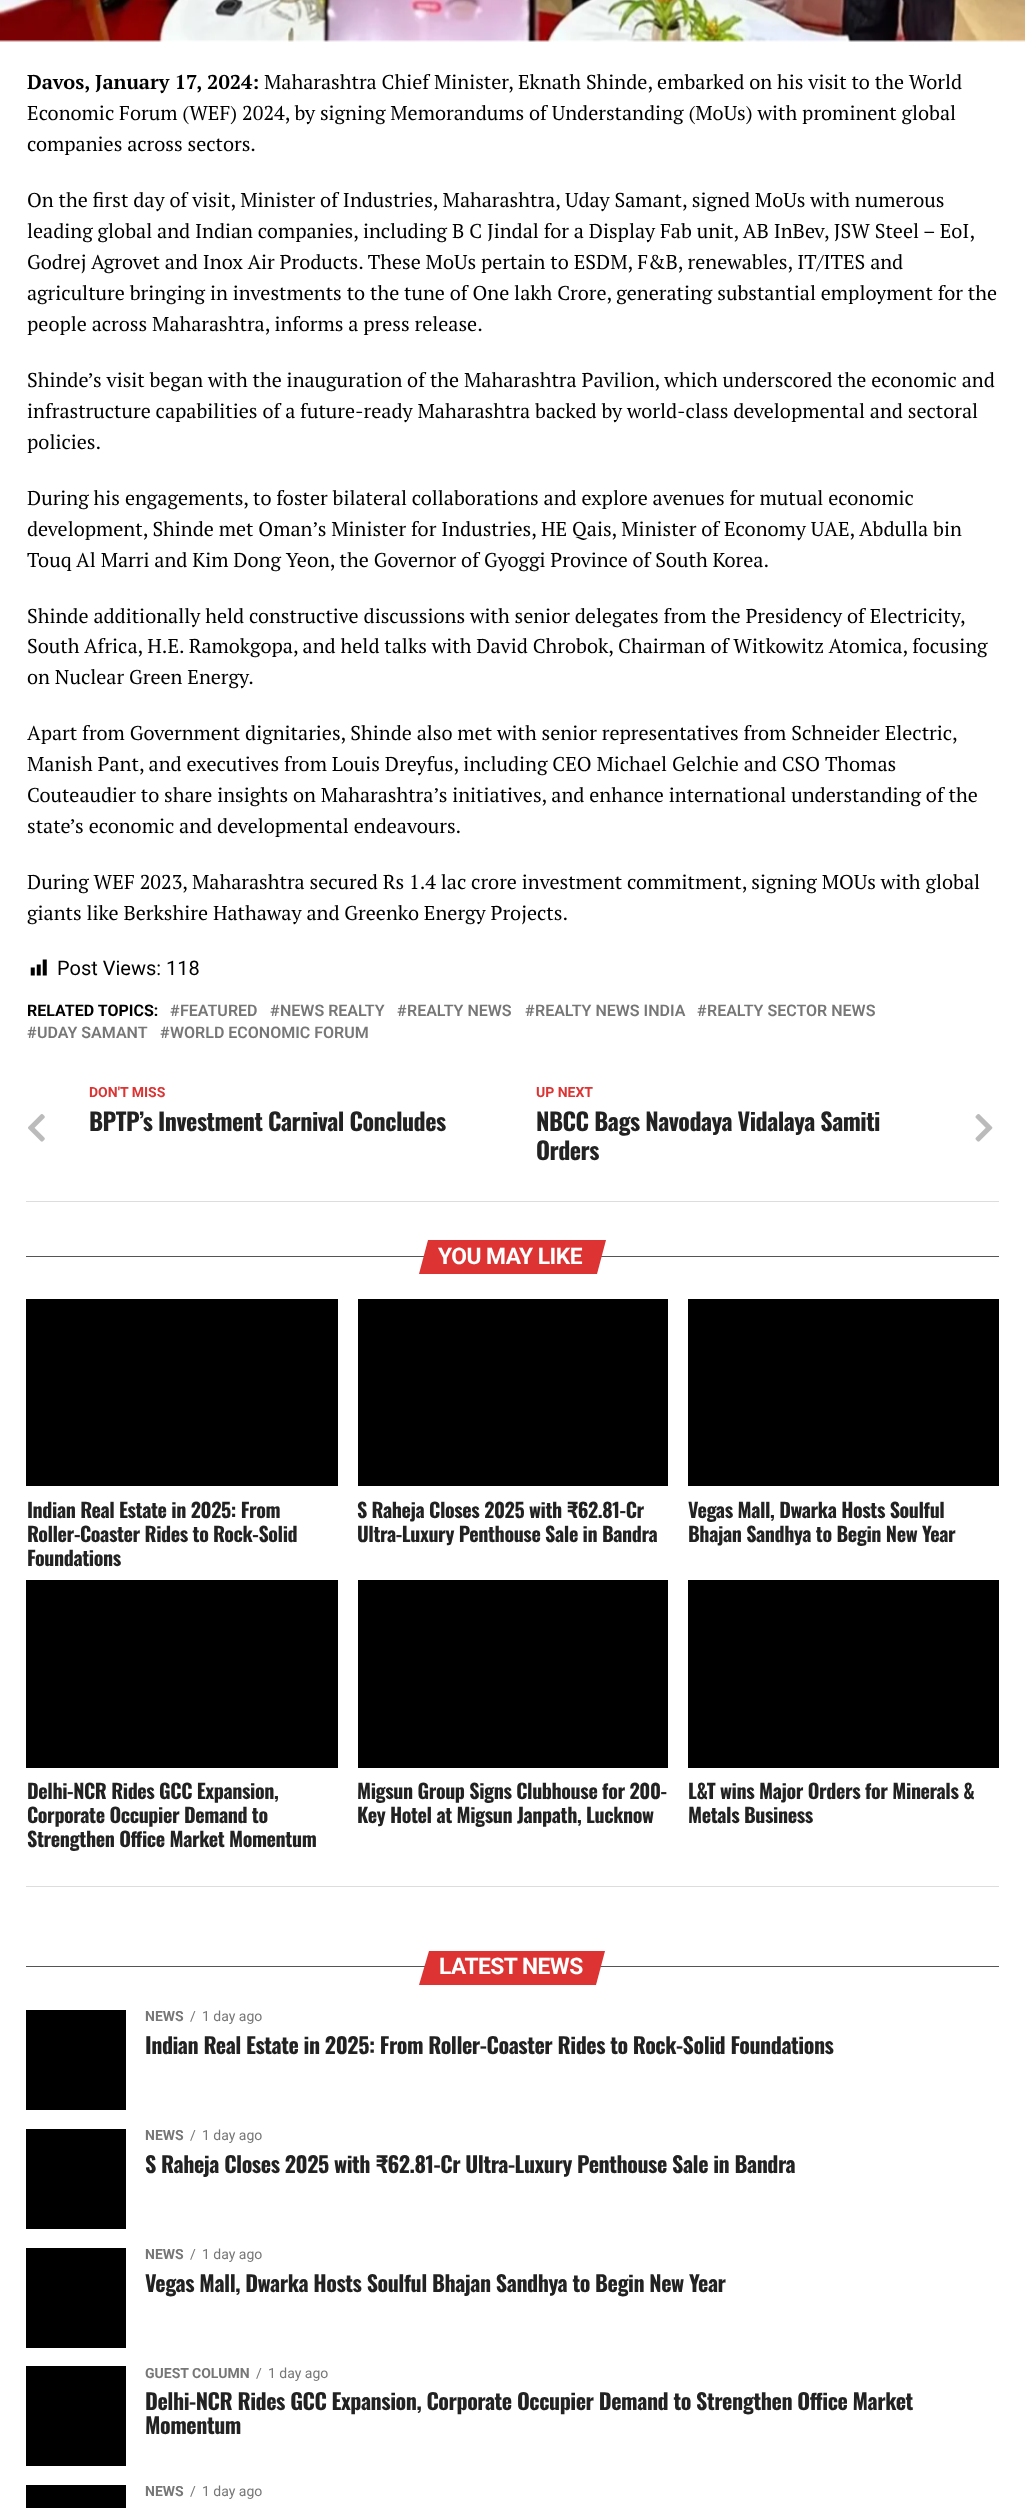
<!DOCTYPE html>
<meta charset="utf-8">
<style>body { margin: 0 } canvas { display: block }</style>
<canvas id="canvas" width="1025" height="2508"></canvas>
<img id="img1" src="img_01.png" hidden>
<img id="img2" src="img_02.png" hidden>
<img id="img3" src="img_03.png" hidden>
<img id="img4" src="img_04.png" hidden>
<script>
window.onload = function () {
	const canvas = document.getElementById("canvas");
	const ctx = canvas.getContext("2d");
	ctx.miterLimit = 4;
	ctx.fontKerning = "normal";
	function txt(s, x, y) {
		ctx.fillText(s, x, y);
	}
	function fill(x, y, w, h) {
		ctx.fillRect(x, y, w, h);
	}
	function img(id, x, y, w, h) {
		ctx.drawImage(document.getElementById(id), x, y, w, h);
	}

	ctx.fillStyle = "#FFFFFF";
	fill(0, 0, 1025, 2508);
	img("img1", 0, 0, 1025, 42);
	img("img2", 30, 959, 17, 17);
	ctx.fillStyle = "#DDDDDD";
	fill(26, 1201, 973, 1);
	img("img3", 28, 1114, 17, 28);
	img("img4", 975, 1114, 18, 28);
	ctx.fillStyle = "#555555";
	fill(26, 1256, 973, 1);
	ctx.fillStyle = "#DD3333";
	ctx.beginPath();
	ctx.moveTo(428, 1240);
	ctx.lineTo(606, 1240);
	ctx.lineTo(597, 1274);
	ctx.lineTo(419, 1274);
	ctx.closePath();
	ctx.fill();
	ctx.fillStyle = "#000000";
	fill(26, 1299, 312, 187);
	fill(358, 1299, 310, 187);
	fill(688, 1299, 311, 187);
	fill(26, 1580, 312, 188);
	fill(358, 1580, 310, 188);
	fill(688, 1580, 311, 188);
	ctx.fillStyle = "#DDDDDD";
	fill(26, 1886, 973, 1);
	ctx.fillStyle = "#555555";
	fill(26, 1966, 973, 1);
	ctx.fillStyle = "#DD3333";
	ctx.beginPath();
	ctx.moveTo(429, 1951);
	ctx.lineTo(605, 1951);
	ctx.lineTo(596, 1985);
	ctx.lineTo(419, 1985);
	ctx.closePath();
	ctx.fill();
	ctx.fillStyle = "#000000";
	fill(26, 2010, 100, 100);
	fill(26, 2129, 100, 100);
	fill(26, 2248, 100, 100);
	fill(26, 2366, 100, 100);
	fill(26, 2485, 100, 23);
	ctx.font = "bold 20px PT Serif";
	txt("Davos, January 17, 2024:", 27, 89);
	ctx.font = "20px PT Serif";
	txt("Maharashtra Chief Minister, Eknath Shinde, embarked on his visit to the World", 264, 89);
	txt("Economic Forum (WEF) 2024, by signing Memorandums of Understanding (MoUs) with prominent global", 27, 120);
	txt("companies across sectors.", 27, 151);
	txt("On the first day of visit, Minister of Industries, Maharashtra, Uday Samant, signed MoUs with numerous", 27, 207);
	txt("leading global and Indian companies, including B C Jindal for a Display Fab unit, AB InBev, JSW Steel – EoI,", 27, 238);
	txt("Godrej Agrovet and Inox Air Products. These MoUs pertain to ESDM, F&B, renewables, IT/ITES and", 27, 269);
	txt("agriculture bringing in investments to the tune of One lakh Crore, generating substantial employment for the", 27, 300);
	txt("people across Maharashtra, informs a press release.", 27, 331);
	txt("Shinde’s visit began with the inauguration of the Maharashtra Pavilion, which underscored the economic and", 27, 387);
	txt("infrastructure capabilities of a future-ready Maharashtra backed by world-class developmental and sectoral", 27, 418);
	txt("policies.", 27, 449);
	txt("During his engagements, to foster bilateral collaborations and explore avenues for mutual economic", 27, 505);
	txt("development, Shinde met Oman’s Minister for Industries, HE Qais, Minister of Economy UAE, Abdulla bin", 27, 536);
	txt("Touq Al Marri and Kim Dong Yeon, the Governor of Gyoggi Province of South Korea.", 27, 567);
	txt("Shinde additionally held constructive discussions with senior delegates from the Presidency of Electricity,", 27, 623);
	txt("South Africa, H.E. Ramokgopa, and held talks with David Chrobok, Chairman of Witkowitz Atomica, focusing", 27, 653);
	txt("on Nuclear Green Energy.", 27, 684);
	txt("Apart from Government dignitaries, Shinde also met with senior representatives from Schneider Electric,", 27, 740);
	txt("Manish Pant, and executives from Louis Dreyfus, including CEO Michael Gelchie and CSO Thomas", 27, 771);
	txt("Couteaudier to share insights on Maharashtra’s initiatives, and enhance international understanding of the", 27, 802);
	txt("state’s economic and developmental endeavours.", 27, 833);
	txt("During WEF 2023, Maharashtra secured Rs 1.4 lac crore investment commitment, signing MOUs with global", 27, 889);
	txt("giants like Berkshire Hathaway and Greenko Energy Projects.", 27, 920);
	ctx.font = "20px Roboto";
	txt("Post Views: 118", 57, 975);
	ctx.font = "bold 16px Roboto";
	txt("RELATED TOPICS:", 27, 1016);
	ctx.font = "600 16px Roboto";
	ctx.fillStyle = "#777777";
	txt("#", 170, 1016);
	txt("FEATURED", 180, 1016);
	txt("#", 270, 1016);
	txt("NEWS REALTY", 280, 1016);
	txt("#", 397, 1016);
	txt("REALTY NEWS", 407, 1016);
	txt("#", 525, 1016);
	txt("REALTY NEWS INDIA", 535, 1016);
	txt("#", 697, 1016);
	txt("REALTY SECTOR NEWS", 707, 1016);
	txt("#", 27, 1038);
	txt("UDAY SAMANT", 37, 1038);
	txt("#", 160, 1038);
	txt("WORLD ECONOMIC FORUM", 170, 1038);
	ctx.font = "bold 14px Roboto";
	ctx.fillStyle = "#DD3333";
	txt("DON'T MISS", 89, 1097);
	ctx.letterSpacing = "-0.5px";
	ctx.font = "bold 24px Oswald";
	ctx.fillStyle = "#222222";
	txt("BPTP’s Investment Carnival Concludes", 89, 1131);
	ctx.letterSpacing = "0px";
	ctx.font = "bold 14px Roboto";
	ctx.fillStyle = "#DD3333";
	txt("UP NEXT", 536, 1097);
	ctx.letterSpacing = "-0.5px";
	ctx.font = "bold 24px Oswald";
	ctx.fillStyle = "#222222";
	txt("NBCC Bags Navodaya Vidalaya Samiti", 536, 1131);
	txt("Orders", 536, 1160);
	ctx.font = "bold 22.75px Roboto";
	ctx.fillStyle = "#FFFFFF";
	txt("YOU MAY LIKE", 438, 1264);
	ctx.letterSpacing = "-0.4px";
	ctx.font = "bold 20px Oswald";
	ctx.fillStyle = "#222222";
	txt("Indian Real Estate in 2025: From", 27, 1518);
	txt("Roller-Coaster Rides to Rock-Solid", 27, 1542);
	txt("Foundations", 27, 1566);
	txt("S Raheja Closes 2025 with ₹62.81-Cr", 357, 1518);
	txt("Ultra-Luxury Penthouse Sale in Bandra", 357, 1542);
	txt("Vegas Mall, Dwarka Hosts Soulful", 688, 1518);
	txt("Bhajan Sandhya to Begin New Year", 688, 1542);
	txt("Delhi-NCR Rides GCC Expansion,", 27, 1799);
	txt("Corporate Occupier Demand to", 27, 1823);
	txt("Strengthen Office Market Momentum", 27, 1847);
	txt("Migsun Group Signs Clubhouse for 200-", 357, 1799);
	txt("Key Hotel at Migsun Janpath, Lucknow", 357, 1823);
	txt("L&T wins Major Orders for Minerals &", 688, 1799);
	txt("Metals Business", 688, 1823);
	ctx.letterSpacing = "-0.5px";
	ctx.font = "bold 22.75px Roboto";
	ctx.fillStyle = "#FFFFFF";
	txt("LATEST NEWS", 439, 1974);
	ctx.letterSpacing = "0px";
	ctx.font = "bold 14px Roboto";
	ctx.fillStyle = "#777777";
	txt("NEWS", 145, 2021);
	ctx.font = "14px Roboto";
	txt("/", 190, 2021);
	txt("1 day ago", 202, 2021);
	ctx.letterSpacing = "-0.45px";
	ctx.font = "bold 22px Oswald";
	ctx.fillStyle = "#222222";
	txt("Indian Real Estate in 2025: From Roller-Coaster Rides to Rock-Solid Foundations", 145, 2054);
	ctx.letterSpacing = "0px";
	ctx.font = "bold 14px Roboto";
	ctx.fillStyle = "#777777";
	txt("NEWS", 145, 2140);
	ctx.font = "14px Roboto";
	txt("/", 190, 2140);
	txt("1 day ago", 202, 2140);
	ctx.letterSpacing = "-0.45px";
	ctx.font = "bold 22px Oswald";
	ctx.fillStyle = "#222222";
	txt("S Raheja Closes 2025 with ₹62.81-Cr Ultra-Luxury Penthouse Sale in Bandra", 145, 2173);
	ctx.letterSpacing = "0px";
	ctx.font = "bold 14px Roboto";
	ctx.fillStyle = "#777777";
	txt("NEWS", 145, 2259);
	ctx.font = "14px Roboto";
	txt("/", 190, 2259);
	txt("1 day ago", 202, 2259);
	ctx.letterSpacing = "-0.45px";
	ctx.font = "bold 22px Oswald";
	ctx.fillStyle = "#222222";
	txt("Vegas Mall, Dwarka Hosts Soulful Bhajan Sandhya to Begin New Year", 145, 2292);
	ctx.letterSpacing = "0px";
	ctx.font = "bold 14px Roboto";
	ctx.fillStyle = "#777777";
	txt("GUEST COLUMN", 145, 2378);
	ctx.font = "14px Roboto";
	txt("/", 256, 2378);
	txt("1 day ago", 268, 2378);
	ctx.letterSpacing = "-0.45px";
	ctx.font = "bold 22px Oswald";
	ctx.fillStyle = "#222222";
	txt("Delhi-NCR Rides GCC Expansion, Corporate Occupier Demand to Strengthen Office Market", 145, 2410);
	txt("Momentum", 145, 2434);
	ctx.letterSpacing = "0px";
	ctx.font = "bold 14px Roboto";
	ctx.fillStyle = "#777777";
	txt("NEWS", 145, 2496);
	ctx.font = "14px Roboto";
	txt("/", 190, 2496);
	txt("1 day ago", 202, 2496);
};
</script>
